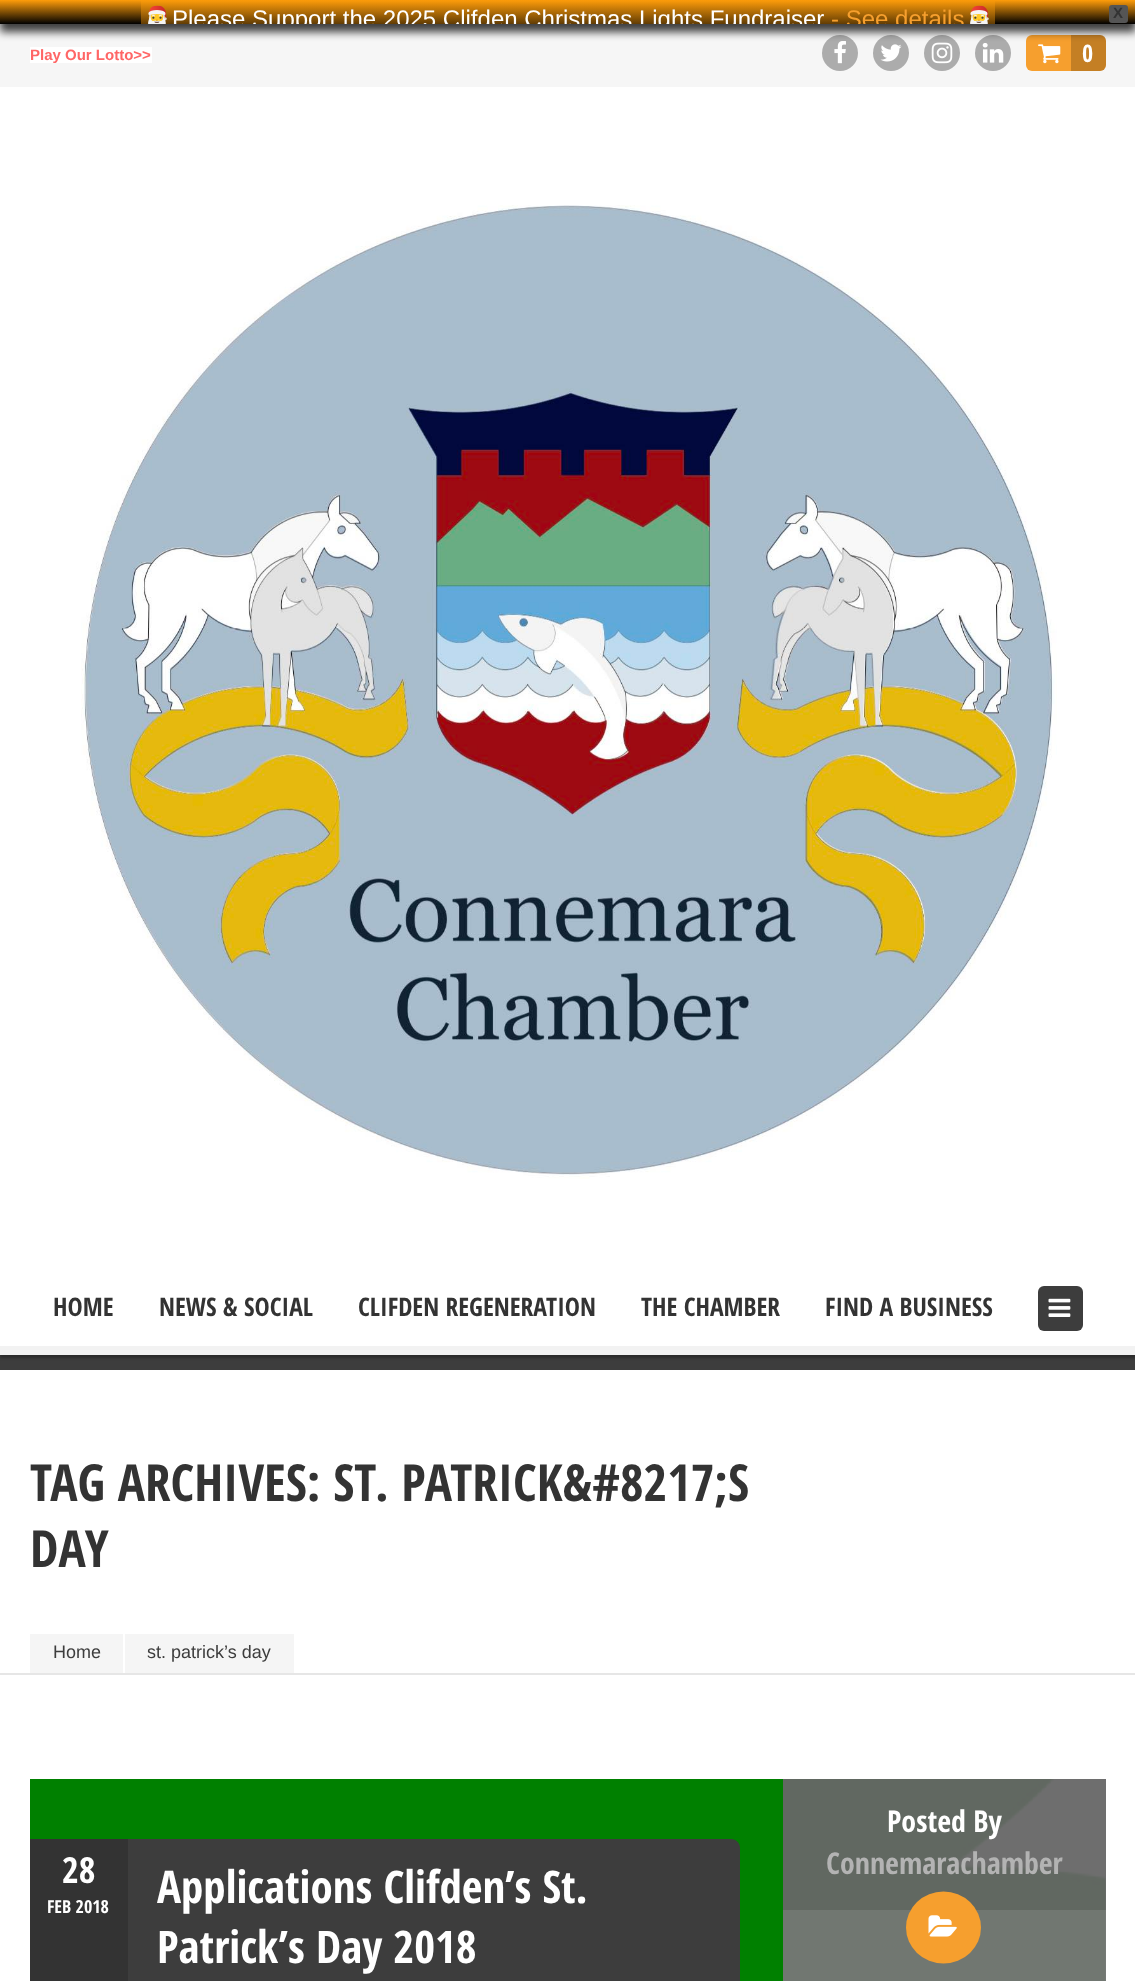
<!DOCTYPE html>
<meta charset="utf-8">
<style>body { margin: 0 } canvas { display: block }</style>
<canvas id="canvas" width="1135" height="1981"></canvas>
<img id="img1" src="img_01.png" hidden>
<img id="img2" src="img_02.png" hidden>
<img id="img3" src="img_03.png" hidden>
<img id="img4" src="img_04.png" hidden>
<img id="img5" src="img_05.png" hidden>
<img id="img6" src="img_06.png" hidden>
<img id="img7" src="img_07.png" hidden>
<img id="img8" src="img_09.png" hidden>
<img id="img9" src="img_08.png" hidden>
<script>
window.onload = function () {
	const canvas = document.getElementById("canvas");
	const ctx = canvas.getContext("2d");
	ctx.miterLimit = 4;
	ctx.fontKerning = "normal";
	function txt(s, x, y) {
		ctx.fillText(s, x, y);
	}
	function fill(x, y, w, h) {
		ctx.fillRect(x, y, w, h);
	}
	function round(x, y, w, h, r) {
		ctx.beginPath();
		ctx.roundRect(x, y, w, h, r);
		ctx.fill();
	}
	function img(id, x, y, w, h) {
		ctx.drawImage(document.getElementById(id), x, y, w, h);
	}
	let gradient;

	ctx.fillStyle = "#FFFFFF";
	fill(0, 0, 1135, 1981);
	ctx.fillStyle = "#3D3D3D";
	fill(0, 1355, 1135, 15);
	ctx.fillStyle = "rgba(0, 0, 0, 0.3)";
	ctx.filter = "blur(1.5px)";
	ctx.beginPath();
	ctx.rect(0, 27, 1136, 1331);
	ctx.fill();
	ctx.filter = "none";
	ctx.fillStyle = "#F6F6F6";
	fill(0, 24, 1135, 63);
	ctx.fillStyle = "#ACACAC";
	ctx.beginPath();
	ctx.arc(840, 53, 18, 0, Math.PI * 2);
	ctx.fill();
	img("img1", 834, 41, 12, 23);
	ctx.beginPath();
	ctx.arc(891, 53, 18, 0, Math.PI * 2);
	ctx.fill();
	img("img2", 880, 44, 22, 18);
	ctx.beginPath();
	ctx.arc(942, 53, 18, 0, Math.PI * 2);
	ctx.fill();
	img("img3", 931, 42, 22, 22);
	ctx.beginPath();
	ctx.arc(993, 53, 18, 0, Math.PI * 2);
	ctx.fill();
	img("img4", 982, 43, 22, 20);
	ctx.fillStyle = "#F69F2E";
	round(1026, 35, 80, 36, 6);
	img("img5", 1038, 44, 23, 20);
	ctx.fillStyle = "rgba(0, 0, 0, 0.2)";
	ctx.beginPath();
	ctx.roundRect(1071, 35, 35, 36, [0, 6, 6, 0]);
	ctx.fill();
	ctx.fillStyle = "rgba(0, 0, 0, 0.75)";
	ctx.filter = "blur(4px)";
	ctx.beginPath();
	ctx.rect(0, 8, 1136, 24);
	ctx.fill();
	ctx.filter = "none";
	gradient = ctx.createLinearGradient(568, 0, 568, 24);
	gradient.addColorStop(0, "#FF9D0A");
	gradient.addColorStop(1, "#000000");
	ctx.fillStyle = gradient;
	fill(0, 0, 1135, 24);
	gradient = ctx.createLinearGradient(568, 0, 568, 39);
	gradient.addColorStop(0, "#FF9D0A");
	gradient.addColorStop(1, "#000000");
	ctx.fillStyle = gradient;
	fill(141, 1, 854, 23);
	ctx.fillStyle = "#555555";
	ctx.beginPath();
	ctx.roundRect(1110, 6, 17, 16, 2);
	ctx.fill();
	ctx.strokeStyle = "#555555";
	ctx.lineWidth = 2;
	ctx.stroke();
	ctx.fillStyle = "#FFFFFF";
	fill(0, 87, 1135, 1259);
	ctx.fillStyle = "#F2F2F2";
	fill(0, 1346, 1135, 9);
	ctx.fillStyle = "#FFFFFF";
	fill(30, 47, 122, 16);
	img("img6", 81, 205, 976, 974);
	ctx.fillStyle = "#3D3D3D";
	round(1038, 1286, 45, 45, 6);
	img("img7", 1048, 1298, 23, 19);
	ctx.fillStyle = "#E6E6E6";
	fill(0, 1673, 1135, 2);
	ctx.fillStyle = "#F5F5F5";
	fill(30, 1634, 93, 39);
	fill(125, 1634, 169, 39);
	img("img8", 30, 1779, 1076, 202);
	ctx.fillStyle = "rgba(102, 102, 102, 0.95)";
	fill(783, 1779, 323, 202);
	ctx.fillStyle = "rgba(255, 255, 255, 0.1)";
	fill(783, 1910, 323, 71);
	ctx.fillStyle = "#F69F2E";
	ctx.beginPath();
	ctx.ellipse(943.5, 1927.5, 37.5, 36, 0, 0, Math.PI * 2);
	ctx.fill();
	img("img9", 928, 1915, 29, 22);
	ctx.save();
	ctx.beginPath();
	ctx.rect(30, 1839, 1076, 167);
	ctx.clip();
	ctx.fillStyle = "#333333";
	ctx.beginPath();
	ctx.moveTo(-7, 1839);
	ctx.lineTo(-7, 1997);
	ctx.lineTo(596, 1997);
	ctx.lineTo(599, 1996);
	ctx.lineTo(128, 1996);
	ctx.lineTo(128, 1839);
	ctx.closePath();
	ctx.fill();
	ctx.restore();
	ctx.fillStyle = "#3D3D3D";
	ctx.beginPath();
	ctx.moveTo(128, 1839);
	ctx.lineTo(731, 1839);
	ctx.bezierCurveTo(736, 1839, 740, 1843, 740, 1848);
	ctx.lineTo(740, 1981);
	ctx.bezierCurveTo(740, 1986, 736, 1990, 731, 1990);
	ctx.lineTo(128, 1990);
	ctx.closePath();
	ctx.fill();
	ctx.save();
	ctx.beginPath();
	ctx.rect(0, 0, 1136, 24);
	ctx.clip();
	ctx.font = "24px Noto Color Emoji";
	ctx.fillStyle = "#FFFFFF";
	txt("🎅", 142, 27);
	ctx.font = "24px Liberation Sans";
	txt("Please Support the 2025 Clifden Christmas Lights Fundraiser", 172, 27);
	ctx.fillStyle = "#F69F2E";
	txt("- See details", 831, 27);
	ctx.font = "24px Noto Color Emoji";
	txt("🎅", 964, 27);
	ctx.restore();
	ctx.font = "bold 15px Liberation Sans";
	ctx.fillStyle = "#333333";
	txt("X", 1113, 18);
	ctx.fillStyle = "#FF6666";
	txt("Play Our Lotto>>", 30, 60);
	ctx.font = "bold 24px Open Sans Condensed";
	ctx.fillStyle = "#FFFFFF";
	txt("0", 1082, 62);
	ctx.font = "bold 25.5px Open Sans Condensed";
	ctx.fillStyle = "#333333";
	txt("HOME", 53, 1316);
	txt("NEWS & SOCIAL", 159, 1316);
	txt("CLIFDEN REGENERATION", 358, 1316);
	txt("THE CHAMBER", 641, 1316);
	txt("FIND A BUSINESS", 825, 1316);
	ctx.font = "bold 51px Open Sans Condensed";
	txt("TAG ARCHIVES: ST. PATRICK&#8217;S", 30, 1501);
	txt("DAY", 30, 1567);
	ctx.font = "18px Liberation Sans";
	ctx.fillStyle = "#3D3D3D";
	txt("Home", 53, 1658);
	txt("st. patrick’s day", 147, 1658);
	ctx.font = "bold 30px Open Sans Condensed";
	ctx.fillStyle = "#FFFFFF";
	txt("Posted By", 887, 1832);
	ctx.fillStyle = "#B3B3B3";
	txt("Connemarachamber", 826, 1874);
	ctx.font = "bold 36px Open Sans Condensed";
	ctx.fillStyle = "#FFFFFF";
	txt("28", 62, 1883);
	ctx.font = "bold 18px Open Sans Condensed";
	txt("FEB 2018", 47, 1913);
	ctx.font = "bold 45px Open Sans Condensed";
	txt("Applications Clifden’s St.", 157, 1903);
	txt("Patrick’s Day 2018", 157, 1963);
};
</script>
